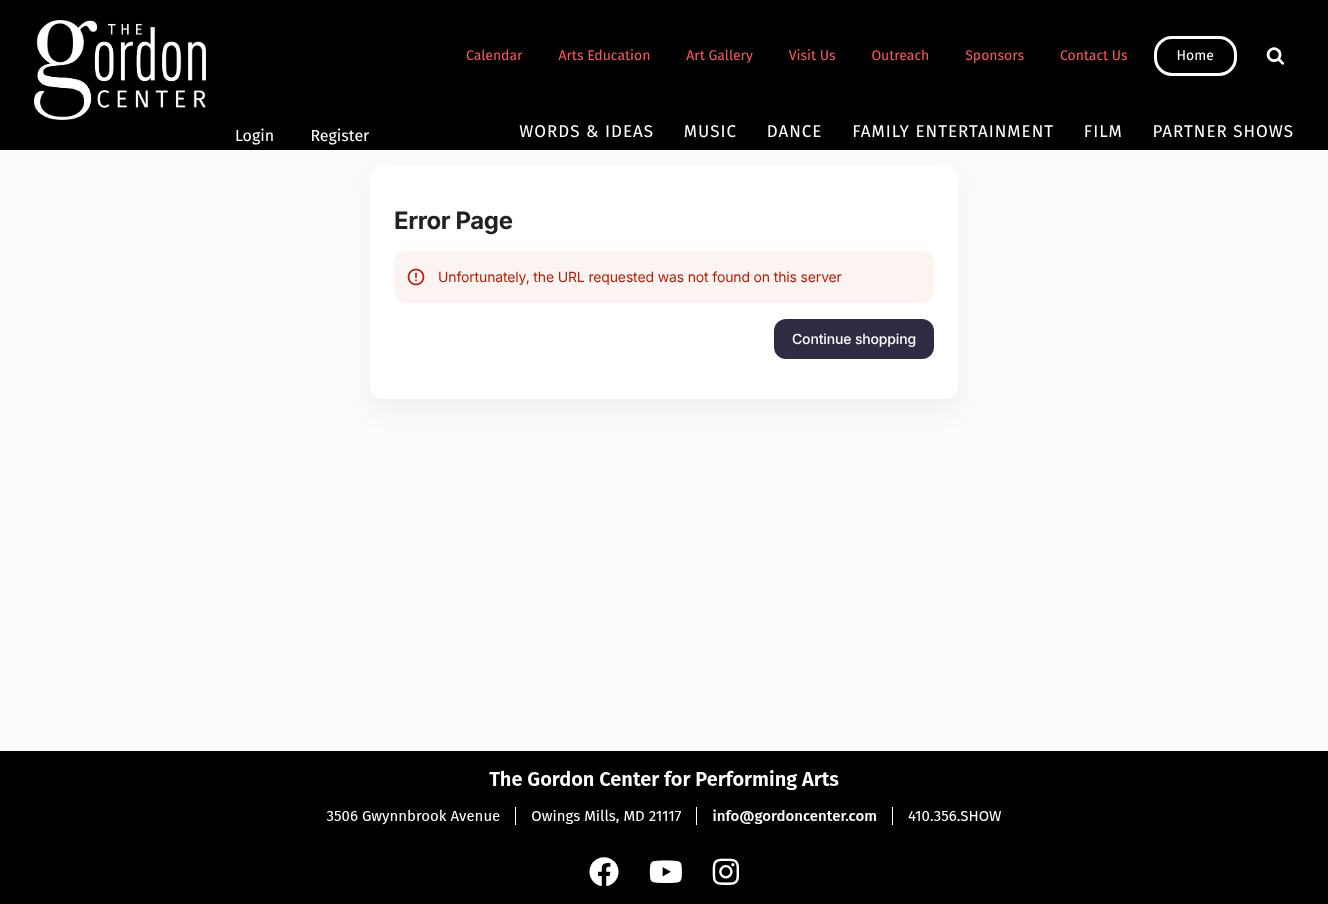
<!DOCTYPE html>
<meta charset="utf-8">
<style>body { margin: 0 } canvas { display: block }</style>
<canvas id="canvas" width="1328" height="904"></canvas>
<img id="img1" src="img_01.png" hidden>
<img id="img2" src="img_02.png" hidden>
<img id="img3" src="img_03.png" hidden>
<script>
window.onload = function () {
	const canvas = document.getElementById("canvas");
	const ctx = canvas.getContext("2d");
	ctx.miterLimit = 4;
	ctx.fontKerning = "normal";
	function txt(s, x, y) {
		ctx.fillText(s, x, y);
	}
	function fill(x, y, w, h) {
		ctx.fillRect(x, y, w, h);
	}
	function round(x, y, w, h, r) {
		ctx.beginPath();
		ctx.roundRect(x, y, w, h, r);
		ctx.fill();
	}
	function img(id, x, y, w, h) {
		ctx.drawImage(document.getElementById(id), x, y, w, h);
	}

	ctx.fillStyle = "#FBFBFD";
	fill(0, 0, 1328, 904);
	ctx.fillStyle = "rgba(33, 33, 33, 0.05)";
	ctx.filter = "blur(12px)";
	ctx.beginPath();
	ctx.roundRect(370, 178, 588, 233, 12);
	ctx.fill();
	ctx.filter = "none";
	img("img1", 0, 0, 1328, 150);
	ctx.fillStyle = "#FFFFFF";
	round(370, 166, 588, 233, 12);
	ctx.fillStyle = "#FCF4F2";
	round(394, 251, 540, 52, 12);
	img("img2", 407, 268, 18, 18);
	ctx.fillStyle = "#2F2B43";
	round(774, 319, 160, 40, 12);
	img("img3", 0, 751, 1328, 153);
	ctx.letterSpacing = "-0.4px";
	ctx.font = "bold 24px Inter";
	ctx.fillStyle = "#212121";
	txt("Error Page", 394, 229);
	ctx.letterSpacing = "-0.15px";
	ctx.font = "14px Inter";
	ctx.fillStyle = "#BC1C00";
	txt("Unfortunately, the URL requested was not found on this server", 438, 282);
	ctx.font = "500 14px Inter";
	ctx.fillStyle = "#FFFFFF";
	txt("Continue shopping", 792, 344);
};
</script>
